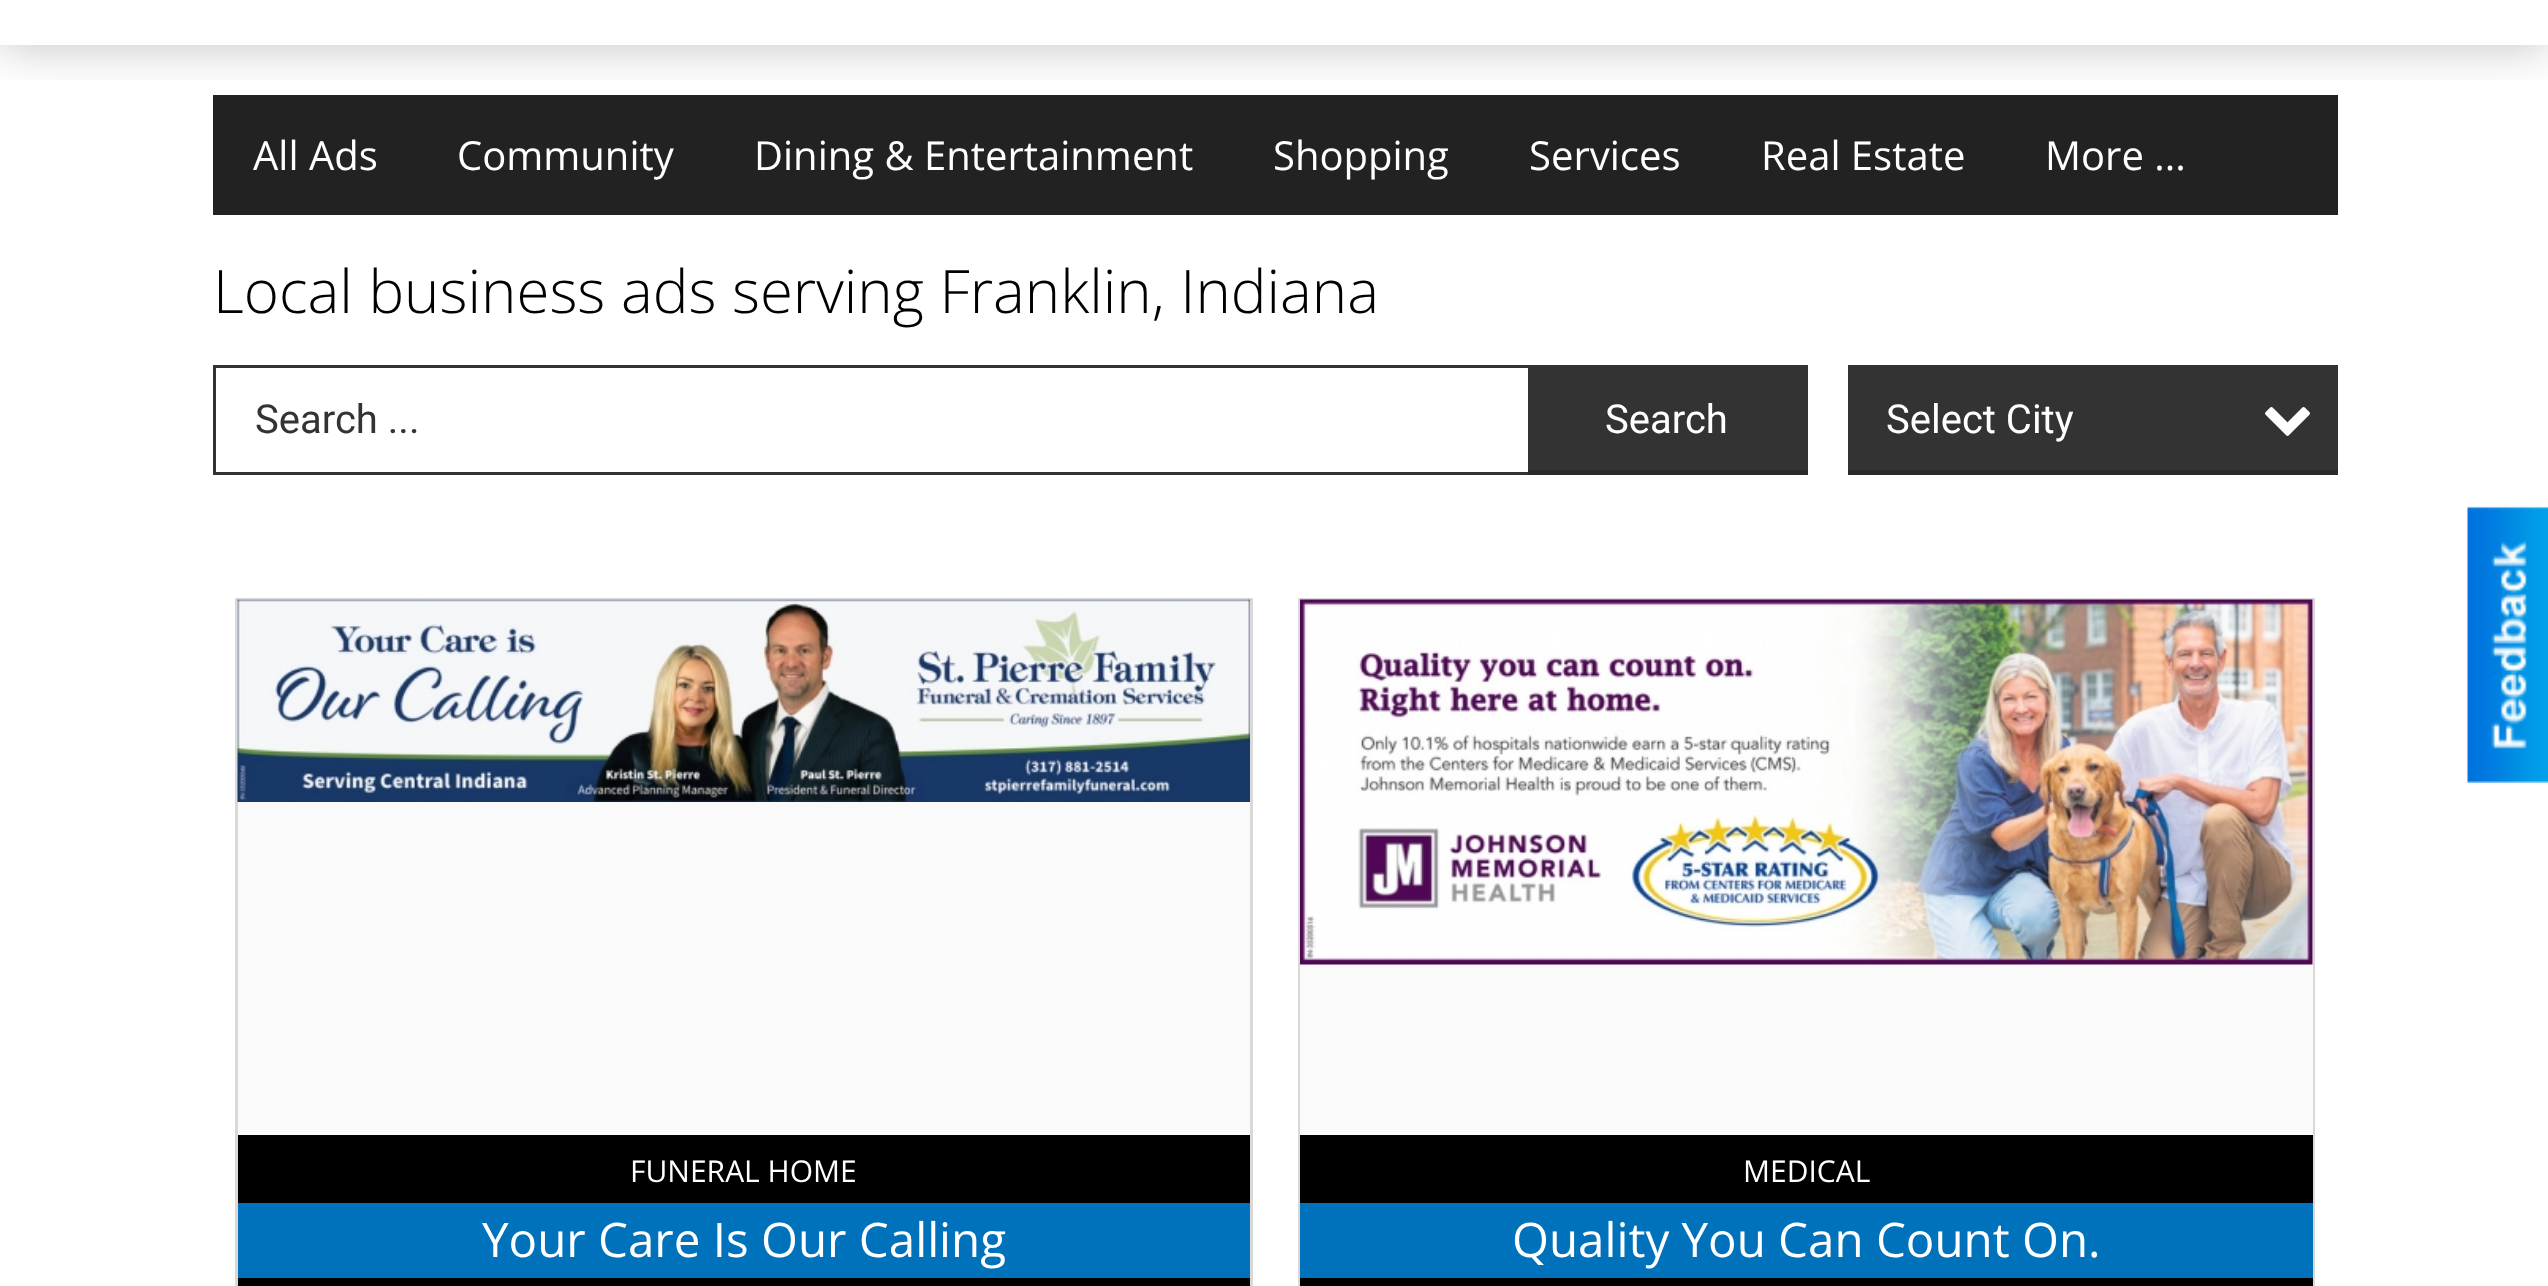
<!DOCTYPE html>
<meta charset="utf-8">
<style>body { margin: 0 } canvas { display: block }</style>
<canvas id="canvas" width="2548" height="1286"></canvas>
<img id="img1" src="img_01.png" hidden>
<img id="img2" src="img_02.png" hidden>
<img id="img3" src="img_03.png" hidden>
<img id="img4" src="img_04.png" hidden>
<script>
window.onload = function () {
	const canvas = document.getElementById("canvas");
	const ctx = canvas.getContext("2d");
	ctx.miterLimit = 4;
	ctx.fontKerning = "normal";
	function txt(s, x, y) {
		ctx.fillText(s, x, y);
	}
	function fill(x, y, w, h) {
		ctx.fillRect(x, y, w, h);
	}
	function img(id, x, y, w, h) {
		ctx.drawImage(document.getElementById(id), x, y, w, h);
	}

	ctx.fillStyle = "#FFFFFF";
	fill(0, 0, 2548, 1286);
	ctx.fillStyle = "#222222";
	fill(213, 95, 2125, 120);
	ctx.save();
	ctx.beginPath();
	ctx.rect(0, 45, 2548, 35);
	ctx.clip();
	ctx.fillStyle = "rgba(0, 0, 0, 0.25)";
	ctx.filter = "blur(25px)";
	ctx.beginPath();
	ctx.rect(0, -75, 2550, 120);
	ctx.fill();
	ctx.filter = "none";
	ctx.restore();
	ctx.strokeStyle = "#333333";
	ctx.lineWidth = 3;
	ctx.strokeRect(214.5, 366.5, 1592, 107);
	ctx.fillStyle = "#333333";
	fill(1528, 368, 277, 102);
	ctx.fillStyle = "#2B2B2B";
	fill(1528, 470, 280, 5);
	ctx.fillStyle = "#333333";
	fill(1848, 365, 490, 105);
	ctx.fillStyle = "#2B2B2B";
	fill(1848, 470, 490, 5);
	img("img1", 2265, 407, 45, 29);
	ctx.strokeStyle = "#D9D9D9";
	ctx.strokeRect(236.5, 599.5, 1015, 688);
	ctx.fillStyle = "#FAFAFA";
	fill(238, 802, 1012, 333);
	img("img2", 237, 599, 1013, 203);
	ctx.fillStyle = "#000000";
	fill(238, 1135, 1012, 151);
	ctx.fillStyle = "#0072BC";
	fill(238, 1203, 1012, 75);
	ctx.strokeRect(1299.5, 599.5, 1014, 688);
	ctx.fillStyle = "#FAFAFA";
	fill(1300, 600, 1013, 535);
	img("img3", 1300, 599, 1013, 366);
	ctx.fillStyle = "#000000";
	fill(1300, 1135, 1013, 151);
	ctx.fillStyle = "#0072BC";
	fill(1300, 1203, 1013, 75);
	img("img4", 2467, 506, 81, 277);
	ctx.font = "40px Open Sans";
	ctx.fillStyle = "#FFFFFF";
	txt("All Ads", 253, 170);
	txt("Community", 457, 170);
	txt("Dining & Entertainment", 754, 170);
	txt("Shopping", 1273, 170);
	txt("Services", 1529, 170);
	txt("Real Estate", 1761, 170);
	txt("More ...", 2045, 170);
	ctx.font = "300 60px Open Sans";
	ctx.fillStyle = "#000000";
	txt("Local business ads serving Franklin, Indiana", 213, 313);
	ctx.font = "40px Roboto";
	ctx.fillStyle = "#333333";
	txt("Search ...", 255, 433);
	ctx.fillStyle = "#FFFFFF";
	txt("Search", 1605, 433);
	txt("Select City", 1886, 433);
	ctx.font = "30px Open Sans";
	txt("FUNERAL HOME", 630, 1182);
	ctx.font = "47.5px Open Sans";
	txt("Your Care Is Our Calling", 482, 1257);
	ctx.font = "30px Open Sans";
	txt("MEDICAL", 1743, 1182);
	ctx.font = "47.5px Open Sans";
	txt("Quality You Can Count On.", 1512, 1257);
};
</script>
